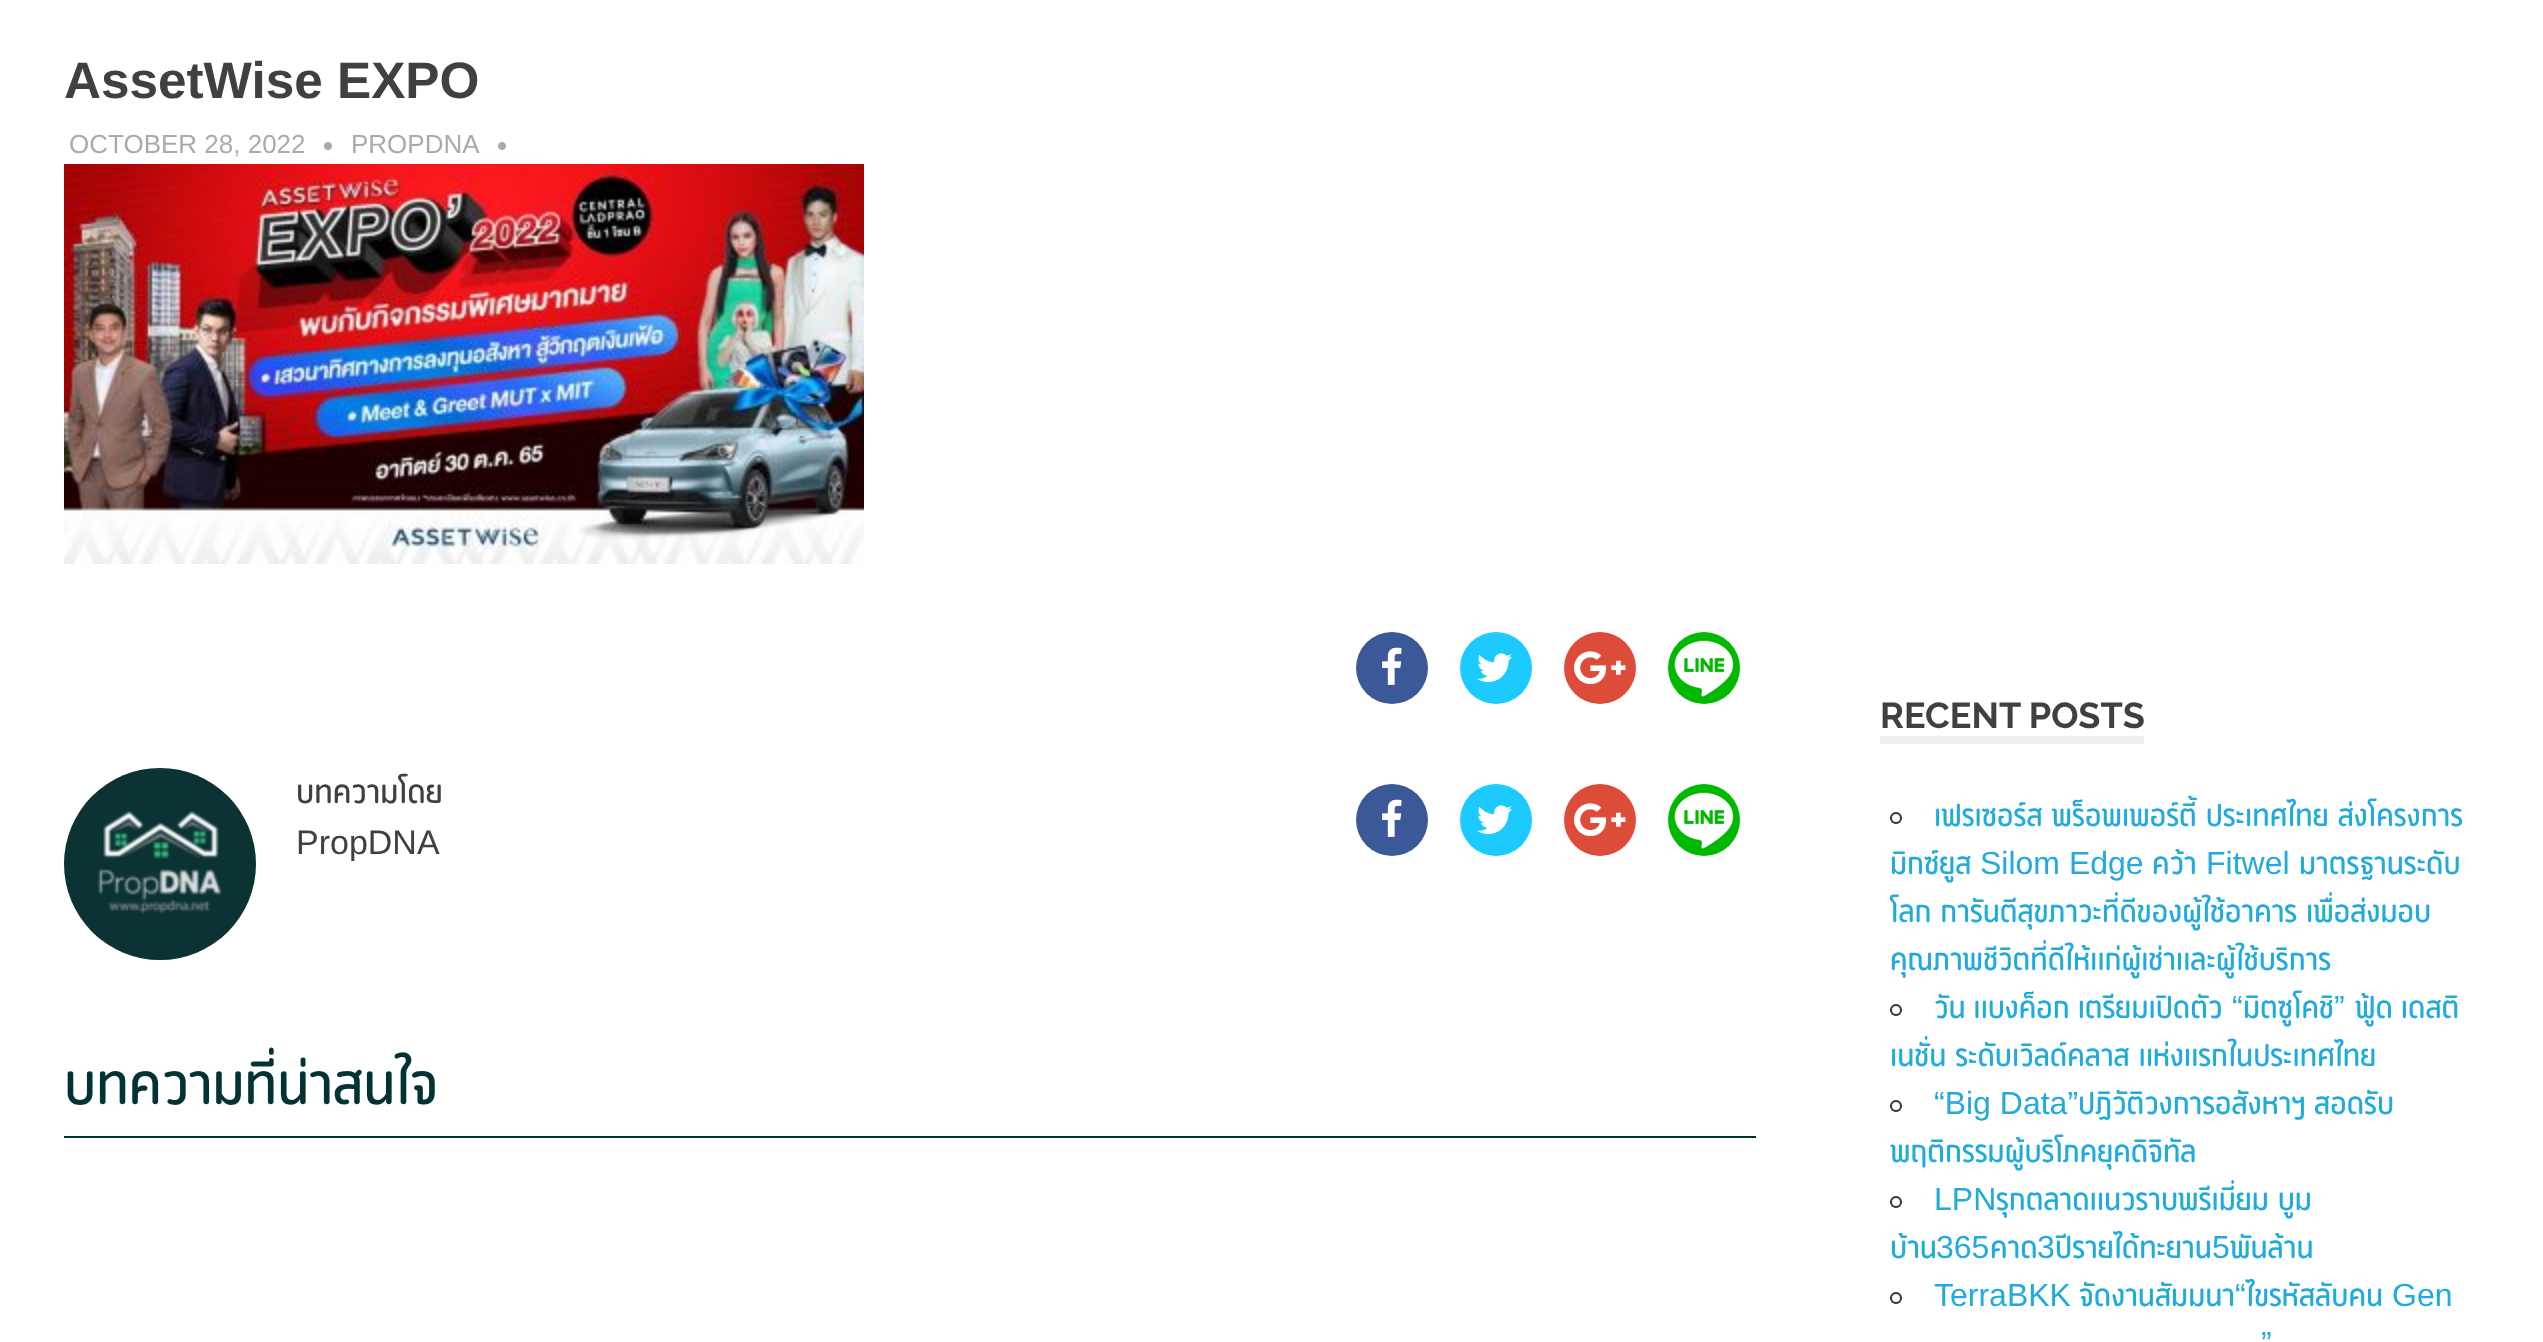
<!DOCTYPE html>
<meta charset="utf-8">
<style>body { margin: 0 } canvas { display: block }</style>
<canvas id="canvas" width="2543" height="1342"></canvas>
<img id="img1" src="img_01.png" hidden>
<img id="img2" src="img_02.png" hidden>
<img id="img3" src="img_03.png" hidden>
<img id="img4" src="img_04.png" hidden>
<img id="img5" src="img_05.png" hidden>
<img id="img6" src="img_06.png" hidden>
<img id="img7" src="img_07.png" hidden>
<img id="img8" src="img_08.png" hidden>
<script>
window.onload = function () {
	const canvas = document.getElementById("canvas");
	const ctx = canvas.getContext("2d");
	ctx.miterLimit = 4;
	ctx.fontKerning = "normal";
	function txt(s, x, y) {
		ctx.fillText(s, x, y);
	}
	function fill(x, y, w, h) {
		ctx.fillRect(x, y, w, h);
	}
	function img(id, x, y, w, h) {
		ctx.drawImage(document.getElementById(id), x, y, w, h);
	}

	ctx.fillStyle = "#FFFFFF";
	fill(0, 0, 2543, 1342);
	img("img1", 324, 142, 8, 8);
	img("img1", 498, 142, 8, 8);
	img("img2", 64, 164, 800, 400);
	ctx.fillStyle = "#3B5998";
	ctx.beginPath();
	ctx.arc(1392, 668, 36, 0, Math.PI * 2);
	ctx.fill();
	img("img3", 1382, 647, 20, 38);
	ctx.fillStyle = "#1DCAFF";
	ctx.beginPath();
	ctx.arc(1496, 668, 36, 0, Math.PI * 2);
	ctx.fill();
	img("img4", 1477, 653, 35, 29);
	ctx.fillStyle = "#DD4B39";
	ctx.beginPath();
	ctx.arc(1600, 668, 36, 0, Math.PI * 2);
	ctx.fill();
	img("img5", 1574, 651, 52, 34);
	img("img6", 1668, 632, 72, 72);
	img("img7", 64, 768, 192, 192);
	ctx.fillStyle = "#3B5998";
	ctx.beginPath();
	ctx.arc(1392, 820, 36, 0, Math.PI * 2);
	ctx.fill();
	img("img3", 1382, 799, 20, 38);
	ctx.fillStyle = "#1DCAFF";
	ctx.beginPath();
	ctx.arc(1496, 820, 36, 0, Math.PI * 2);
	ctx.fill();
	img("img4", 1477, 805, 35, 29);
	ctx.fillStyle = "#DD4B39";
	ctx.beginPath();
	ctx.arc(1600, 820, 36, 0, Math.PI * 2);
	ctx.fill();
	img("img5", 1574, 803, 52, 34);
	img("img8", 1668, 784, 72, 72);
	ctx.fillStyle = "#013334";
	fill(64, 1136, 1692, 2);
	ctx.fillStyle = "#EEEEEE";
	fill(1880, 736, 264, 8);
	ctx.beginPath();
	ctx.arc(1896, 818, 5, 0, Math.PI * 2);
	ctx.strokeStyle = "#333333";
	ctx.lineWidth = 2;
	ctx.stroke();
	ctx.beginPath();
	ctx.arc(1896, 1010, 5, 0, Math.PI * 2);
	ctx.stroke();
	ctx.beginPath();
	ctx.arc(1896, 1106, 5, 0, Math.PI * 2);
	ctx.stroke();
	ctx.beginPath();
	ctx.arc(1896, 1202, 5, 0, Math.PI * 2);
	ctx.stroke();
	ctx.beginPath();
	ctx.arc(1896, 1298, 5, 0, Math.PI * 2);
	ctx.stroke();
	ctx.font = "bold 51.25px Liberation Sans";
	ctx.fillStyle = "#404040";
	txt("AssetWise EXPO", 64, 98);
	ctx.font = "26px Liberation Sans";
	ctx.fillStyle = "#AAAAAA";
	txt("OCTOBER 28, 2022", 69, 153);
	txt("PROPDNA", 351, 153);
	ctx.font = "34px 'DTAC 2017'";
	ctx.fillStyle = "#404040";
	txt("บทความโดย", 296, 803);
	ctx.font = "34px Liberation Sans";
	txt("PropDNA", 296, 854);
	ctx.font = "60px 'DTAC 2017'";
	ctx.fillStyle = "#013334";
	txt("บทความที่น่าสนใจ", 64, 1104);
	ctx.font = "bold 36px Raleway";
	ctx.fillStyle = "#404040";
	txt("RECENT POSTS", 1880, 728);
	ctx.wordSpacing = "2px";
	ctx.font = "32px 'DTAC 2017'";
	ctx.fillStyle = "#22AADD";
	txt("เฟรเซอร์ส พร็อพเพอร์ตี้ ประเทศไทย ส่งโครงการ", 1934, 826);
	ctx.wordSpacing = "0px";
	txt("มิกซ์ยูส", 1890, 874);
	ctx.font = "32px Liberation Sans";
	txt("Silom Edge", 1980, 874);
	ctx.font = "32px 'DTAC 2017'";
	txt("คว้า", 2152, 874);
	ctx.font = "32px Liberation Sans";
	txt("Fitwel", 2206, 874);
	ctx.font = "32px 'DTAC 2017'";
	txt("มาตรฐานระดับ", 2299, 874);
	ctx.wordSpacing = "2px";
	txt("โลก การันตีสุขภาวะที่ดีของผู้ใช้อาคาร เพื่อส่งมอบ", 1890, 922);
	ctx.wordSpacing = "0px";
	txt("คุณภาพชีวิตที่ดีให้แก่ผู้เช่าและผู้ใช้บริการ", 1890, 970);
	ctx.wordSpacing = "1px";
	txt("วัน แบงค็อก เตรียมเปิดตัว", 1934, 1018);
	ctx.wordSpacing = "0px";
	ctx.font = "32px Liberation Sans";
	txt("“", 2232, 1018);
	ctx.font = "32px 'DTAC 2017'";
	txt("มิตซูโคชิ", 2243, 1018);
	ctx.font = "32px Liberation Sans";
	txt("”", 2334, 1018);
	ctx.wordSpacing = "1px";
	ctx.font = "32px 'DTAC 2017'";
	txt("ฟู้ด เดสติ", 2355, 1018);
	ctx.wordSpacing = "2px";
	txt("เนชั่น ระดับเวิลด์คลาส แห่งแรกในประเทศไทย", 1890, 1066);
	ctx.wordSpacing = "0px";
	ctx.font = "32px Liberation Sans";
	txt("“Big Data”", 1934, 1114);
	ctx.font = "32px 'DTAC 2017'";
	txt("ปฏิวัติวงการอสังหาฯ", 2078, 1114);
	txt("สอดรับ", 2314, 1114);
	txt("พฤติกรรมผู้บริโภคยุคดิจิทัล", 1890, 1162);
	ctx.font = "32px Liberation Sans";
	txt("LPN", 1934, 1210);
	ctx.wordSpacing = "2px";
	ctx.font = "32px 'DTAC 2017'";
	txt("รุกตลาดแนวราบพรีเมี่ยม บูม", 1996, 1210);
	ctx.wordSpacing = "0px";
	txt("บ้าน", 1890, 1258);
	ctx.font = "32px Liberation Sans";
	txt("365", 1936, 1258);
	ctx.font = "32px 'DTAC 2017'";
	txt("คาด", 1990, 1258);
	ctx.font = "32px Liberation Sans";
	txt("3", 2037, 1258);
	ctx.font = "32px 'DTAC 2017'";
	txt("ปีรายได้ทะยาน", 2055, 1258);
	ctx.font = "32px Liberation Sans";
	txt("5", 2212, 1258);
	ctx.font = "32px 'DTAC 2017'";
	txt("พันล้าน", 2230, 1258);
	ctx.font = "32px Liberation Sans";
	txt("TerraBKK", 1934, 1306);
	ctx.font = "32px 'DTAC 2017'";
	txt("จัดงานสัมมนา", 2079, 1306);
	ctx.font = "32px Liberation Sans";
	txt("“", 2235, 1306);
	ctx.font = "32px 'DTAC 2017'";
	txt("ไขรหัสลับคน", 2246, 1306);
	ctx.font = "32px Liberation Sans";
	txt("Gen", 2392, 1306);
	txt("”", 2261, 1354);
};
</script>
